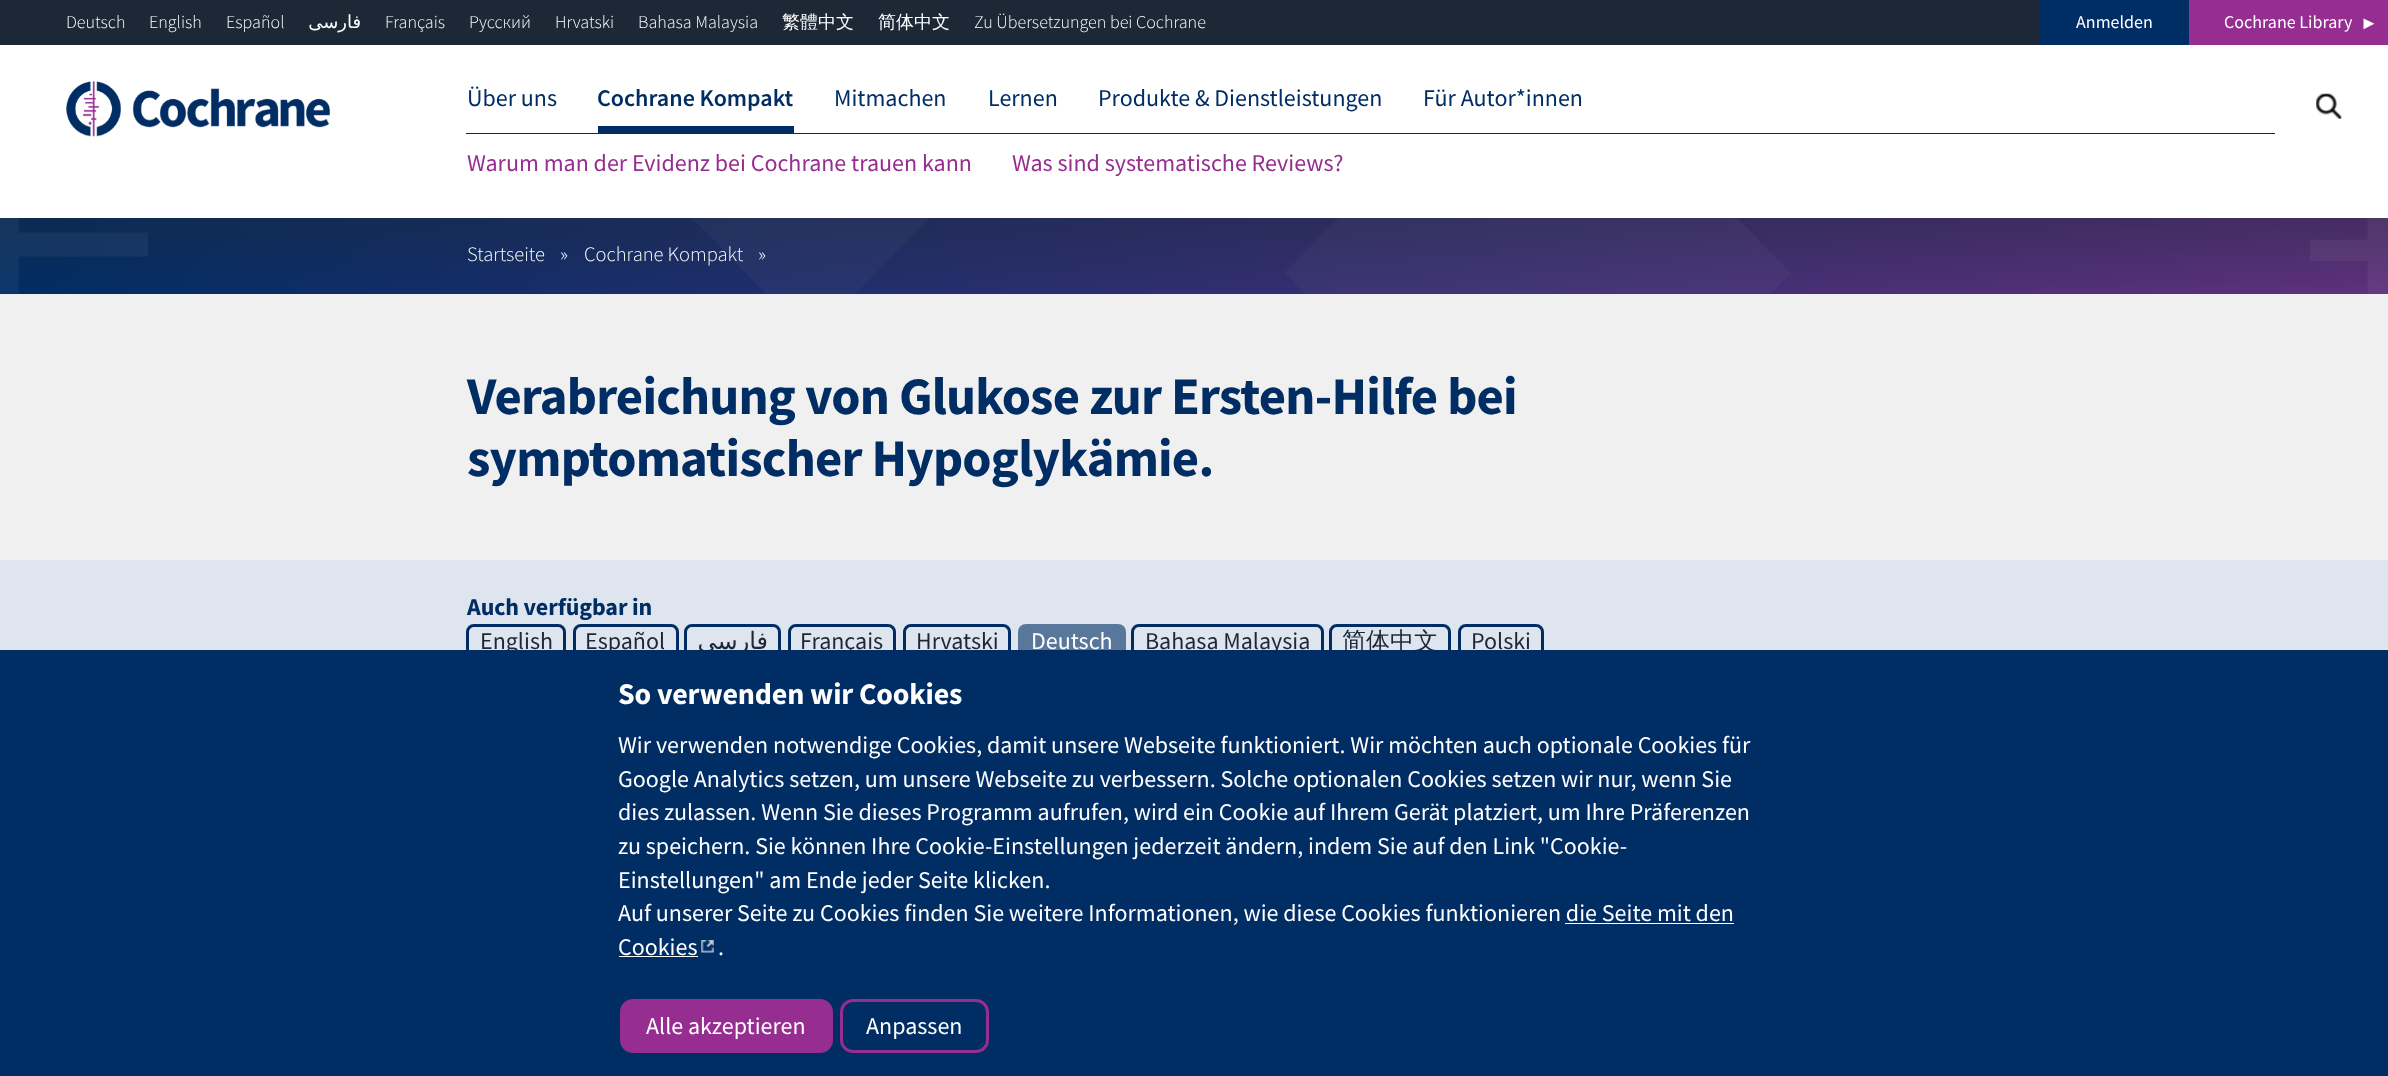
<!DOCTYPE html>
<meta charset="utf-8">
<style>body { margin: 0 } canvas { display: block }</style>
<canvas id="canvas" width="2388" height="1076"></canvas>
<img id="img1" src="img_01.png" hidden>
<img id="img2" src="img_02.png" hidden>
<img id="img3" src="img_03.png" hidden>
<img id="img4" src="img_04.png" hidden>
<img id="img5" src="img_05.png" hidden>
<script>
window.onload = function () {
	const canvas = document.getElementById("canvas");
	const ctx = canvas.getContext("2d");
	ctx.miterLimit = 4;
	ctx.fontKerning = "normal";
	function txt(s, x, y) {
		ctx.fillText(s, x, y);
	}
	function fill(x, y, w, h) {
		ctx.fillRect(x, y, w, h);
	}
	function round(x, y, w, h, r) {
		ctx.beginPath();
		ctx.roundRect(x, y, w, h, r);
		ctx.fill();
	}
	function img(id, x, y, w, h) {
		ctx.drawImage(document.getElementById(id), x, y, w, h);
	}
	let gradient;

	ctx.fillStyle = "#F0F0F0";
	fill(0, 0, 2388, 1076);
	ctx.fillStyle = "#1C2836";
	fill(0, 0, 2040, 45);
	ctx.fillStyle = "#FFFFFF";
	fill(0, 45, 2388, 173);
	ctx.fillStyle = "#002D64";
	fill(2040, 0, 149, 45);
	ctx.fillStyle = "#962D91";
	fill(2189, 0, 199, 45);
	img("img1", 66, 81, 264, 56);
	ctx.fillStyle = "#002D64";
	fill(598, 126, 196, 7);
	fill(466, 133, 1809, 1);
	img("img2", 2316, 93, 26, 26);
	gradient = ctx.createLinearGradient(0, 256, 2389, 256);
	gradient.addColorStop(0, "#002D64");
	gradient.addColorStop(1, "#5F307D");
	ctx.fillStyle = gradient;
	fill(0, 218, 2388, 76);
	gradient = ctx.createLinearGradient(1194, 97, 1194, 294);
	gradient.addColorStop(0, "#1C2836");
	gradient.addColorStop(1, "rgba(28, 40, 54, 0)");
	ctx.fillStyle = gradient;
	fill(0, 218, 2388, 69);
	img("img3", 0, 218, 1791, 76);
	img("img4", 692, 218, 1696, 76);
	ctx.fillStyle = "#DEE5EE";
	fill(0, 560, 2388, 90);
	ctx.beginPath();
	ctx.roundRect(467.5, 625.5, 97, 32, 6.5);
	ctx.strokeStyle = "#002D64";
	ctx.lineWidth = 3;
	ctx.stroke();
	ctx.beginPath();
	ctx.roundRect(574.5, 625.5, 103, 32, 6.5);
	ctx.stroke();
	ctx.beginPath();
	ctx.roundRect(685.5, 625.5, 94, 32, 6.5);
	ctx.stroke();
	ctx.beginPath();
	ctx.roundRect(789.5, 625.5, 105, 32, 6.5);
	ctx.stroke();
	ctx.beginPath();
	ctx.roundRect(904.5, 625.5, 105, 32, 6.5);
	ctx.stroke();
	ctx.fillStyle = "#59779B";
	round(1018, 624, 108, 35, 8);
	ctx.beginPath();
	ctx.roundRect(1132.5, 625.5, 190, 32, 6.5);
	ctx.stroke();
	ctx.beginPath();
	ctx.roundRect(1330.5, 625.5, 119, 32, 6.5);
	ctx.stroke();
	ctx.beginPath();
	ctx.roundRect(1459.5, 625.5, 83, 32, 6.5);
	ctx.stroke();
	ctx.font = "300 18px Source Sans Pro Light";
	ctx.fillStyle = "#FFFFFF";
	txt("Deutsch", 66, 28);
	txt("English", 149, 28);
	txt("Español", 226, 28);
	ctx.direction = "rtl";
	ctx.font = "18px DejaVu Sans";
	txt("فارسی", 361, 28);
	ctx.direction = "ltr";
	ctx.font = "300 18px Source Sans Pro Light";
	txt("Français", 385, 28);
	txt("Русский", 469, 28);
	txt("Hrvatski", 555, 28);
	txt("Bahasa Malaysia", 638, 28);
	ctx.font = "500 18px WenQuanYi Zen Hei";
	txt("繁體中文", 782, 28);
	txt("简体中文", 878, 28);
	ctx.font = "300 18px Source Sans Pro Light";
	txt("Zu Übersetzungen bei Cochrane", 974, 28);
	ctx.font = "18px Source Sans Pro";
	txt("Anmelden", 2076, 28);
	txt("Cochrane Library", 2224, 28);
	ctx.font = "18px Liberation Sans";
	txt("►", 2360, 29);
	ctx.font = "24px Source Sans Pro";
	ctx.fillStyle = "#002D64";
	txt("Über uns", 467, 106);
	txt("Mitmachen", 834, 106);
	txt("Produkte & Dienstleistungen", 1098, 106);
	txt("Für Autor*innen", 1423, 106);
	ctx.font = "600 24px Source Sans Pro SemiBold";
	txt("Cochrane Kompakt", 597, 106);
	ctx.font = "24px Source Sans Pro";
	ctx.fillStyle = "#962D91";
	txt("Warum man der Evidenz bei Cochrane trauen kann", 467, 171);
	txt("Was sind systematische Reviews?", 1012, 171);
	ctx.fillStyle = "#002D64";
	txt("Lernen", 988, 106);
	ctx.font = "300 20.5px Source Sans Pro Light";
	ctx.fillStyle = "#FFFFFF";
	txt("Startseite", 467, 261);
	ctx.font = "300 20px Source Sans Pro Light";
	txt("»", 560, 261);
	ctx.font = "300 20.5px Source Sans Pro Light";
	txt("Cochrane Kompakt", 584, 261);
	ctx.font = "300 20px Source Sans Pro Light";
	txt("»", 758, 261);
	ctx.letterSpacing = "-0.8px";
	ctx.font = "bold 52.75px Source Sans Pro";
	ctx.fillStyle = "#002D64";
	txt("Verabreichung von Glukose zur Ersten-Hilfe bei", 467, 414);
	txt("symptomatischer Hypoglykämie.", 467, 476);
	ctx.letterSpacing = "-0.1px";
	ctx.font = "bold 24px Source Sans Pro";
	txt("Auch verfügbar in", 467, 615);
	ctx.letterSpacing = "0px";
	ctx.font = "24px Source Sans Pro";
	ctx.fillStyle = "#1C2836";
	txt("English", 480, 649);
	txt("Español", 585, 649);
	ctx.direction = "rtl";
	ctx.font = "24px DejaVu Sans";
	txt("فارسی", 768, 649);
	ctx.direction = "ltr";
	ctx.font = "24px Source Sans Pro";
	txt("Français", 800, 649);
	txt("Hrvatski", 916, 649);
	ctx.fillStyle = "#FFFFFF";
	txt("Deutsch", 1031, 649);
	ctx.fillStyle = "#1C2836";
	txt("Bahasa Malaysia", 1145, 649);
	ctx.font = "500 24px WenQuanYi Zen Hei";
	txt("简体中文", 1342, 649);
	ctx.font = "24px Source Sans Pro";
	txt("Polski", 1471, 649);
	ctx.fillStyle = "#002D64";
	fill(0, 650, 2388, 426);
	ctx.letterSpacing = "-0.15px";
	ctx.font = "bold 30px Source Sans Pro";
	ctx.fillStyle = "#FFFFFF";
	txt("So verwenden wir Cookies", 618, 704);
	ctx.letterSpacing = "0px";
	ctx.font = "24px Source Sans Pro";
	txt("Wir verwenden notwendige Cookies, damit unsere Webseite funktioniert. Wir möchten auch optionale Cookies für", 618, 753);
	txt("Google Analytics setzen, um unsere Webseite zu verbessern. Solche optionalen Cookies setzen wir nur, wenn Sie", 618, 787);
	txt("dies zulassen. Wenn Sie dieses Programm aufrufen, wird ein Cookie auf Ihrem Gerät platziert, um Ihre Präferenzen", 618, 820);
	txt("zu speichern. Sie können Ihre Cookie-Einstellungen jederzeit ändern, indem Sie auf den Link \"Cookie-", 618, 854);
	txt("Einstellungen\" am Ende jeder Seite klicken.", 618, 888);
	txt("Auf unserer Seite zu Cookies finden Sie weitere Informationen, wie diese Cookies funktionieren die Seite mit den", 618, 921);
	txt("Cookies", 618, 955);
	fill(1565, 923, 169, 1);
	fill(619, 956, 79, 1);
	img("img5", 701, 940, 13, 13);
	txt(".", 718, 955);
	ctx.fillStyle = "#962D91";
	ctx.beginPath();
	ctx.roundRect(621.5, 1000.5, 210, 51, 11.5);
	ctx.fill();
	ctx.strokeStyle = "#962D91";
	ctx.stroke();
	ctx.fillStyle = "#FFFFFF";
	txt("Alle akzeptieren", 646, 1034);
	ctx.beginPath();
	ctx.roundRect(841.5, 1000.5, 146, 51, 11.5);
	ctx.stroke();
	txt("Anpassen", 866, 1034);
};
</script>
